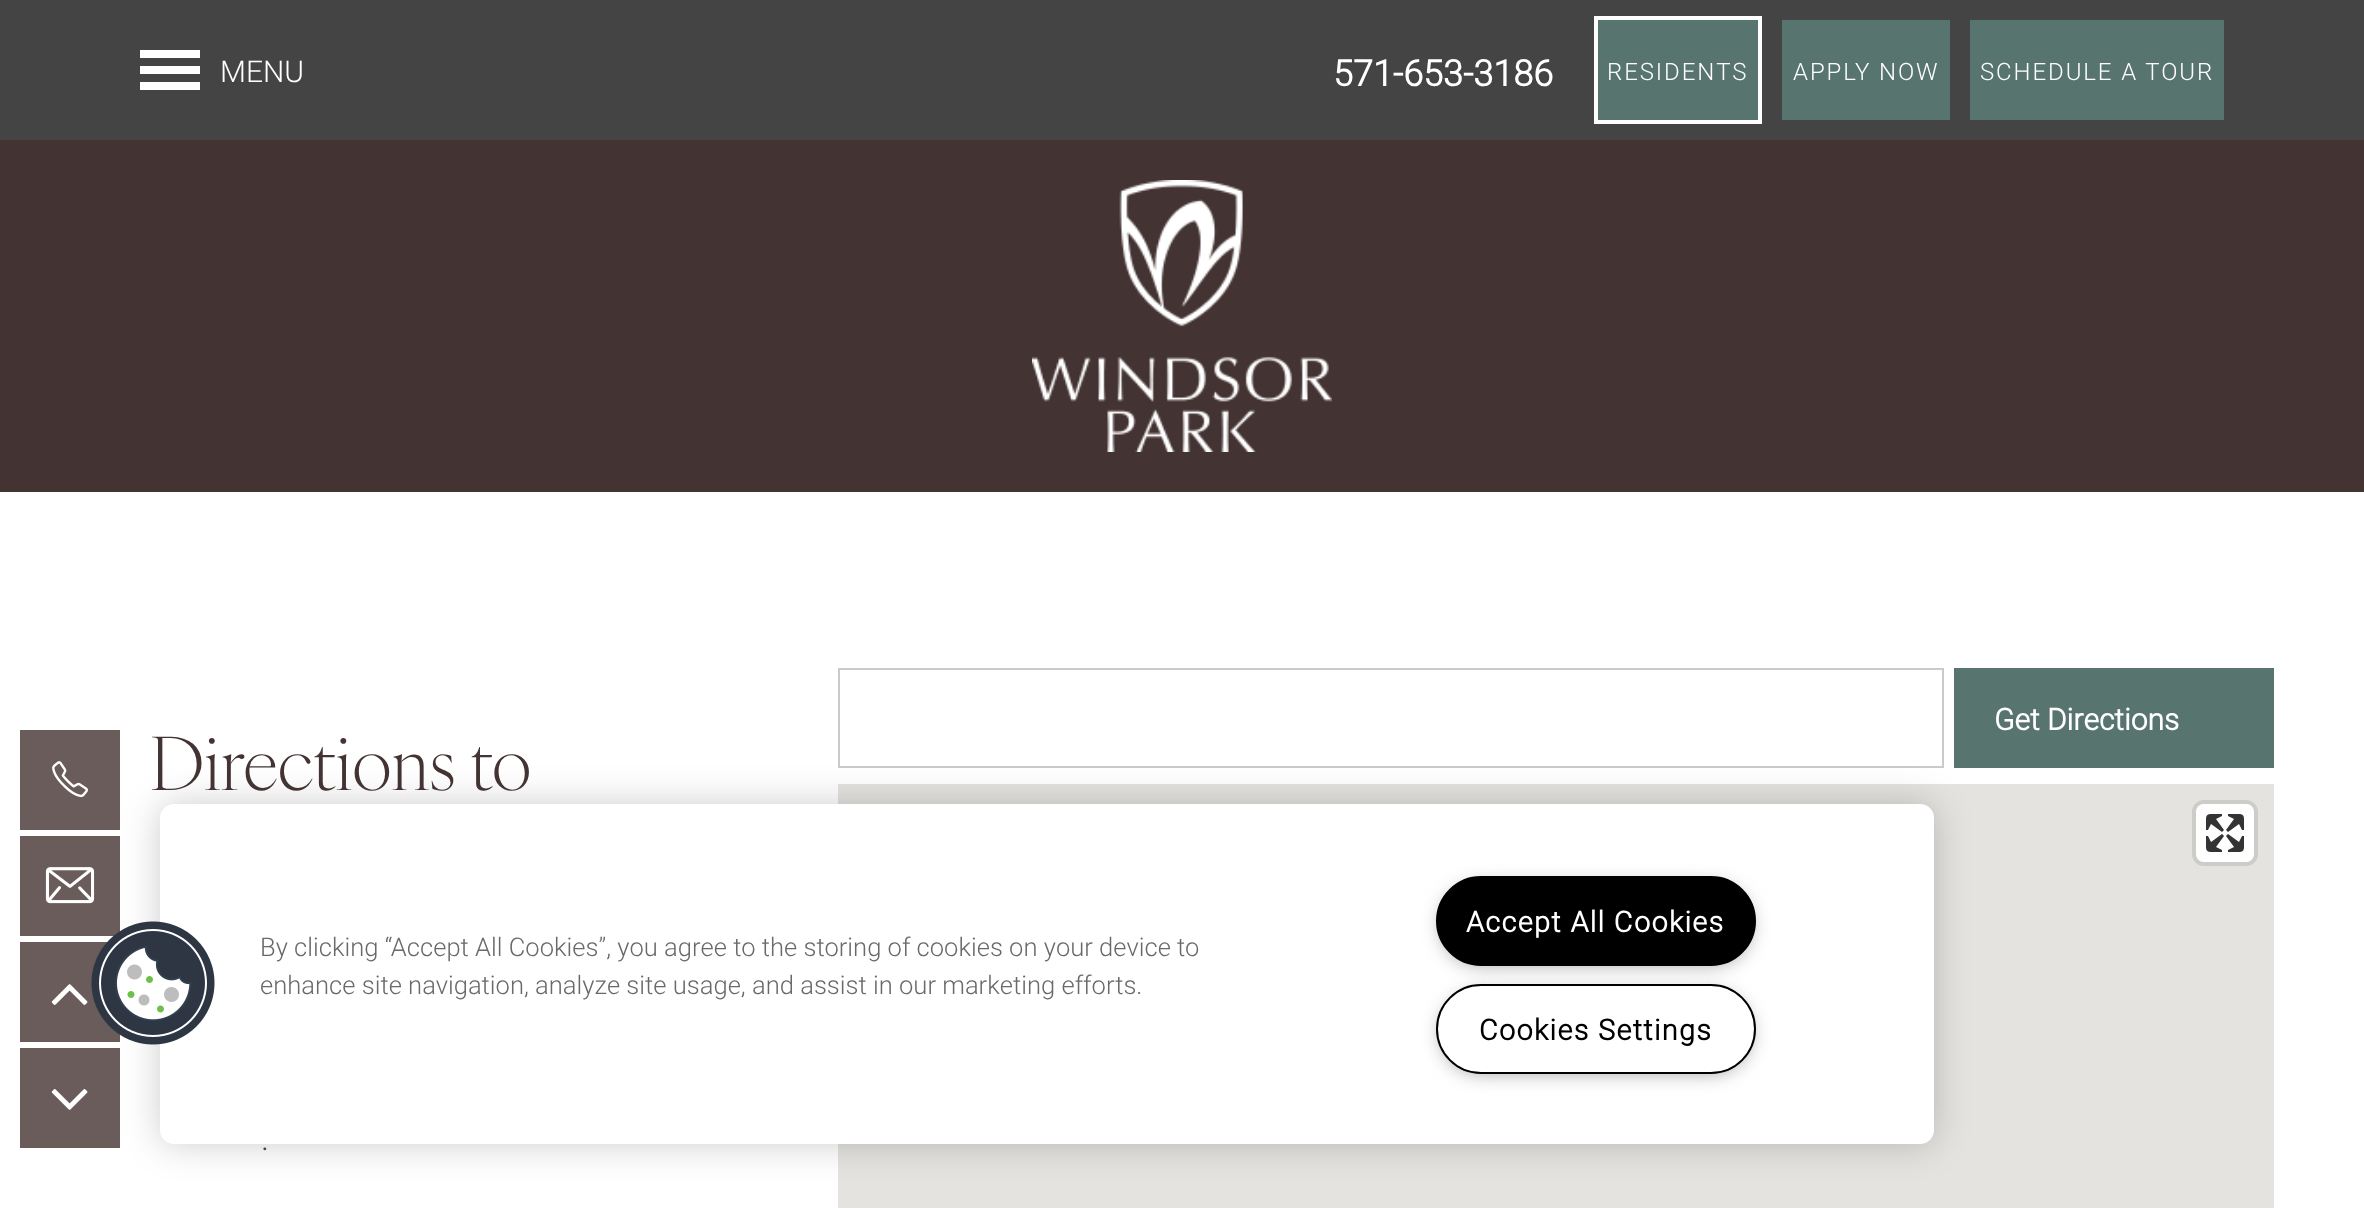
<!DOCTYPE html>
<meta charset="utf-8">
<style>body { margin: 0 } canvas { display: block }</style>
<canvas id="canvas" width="2364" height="1208"></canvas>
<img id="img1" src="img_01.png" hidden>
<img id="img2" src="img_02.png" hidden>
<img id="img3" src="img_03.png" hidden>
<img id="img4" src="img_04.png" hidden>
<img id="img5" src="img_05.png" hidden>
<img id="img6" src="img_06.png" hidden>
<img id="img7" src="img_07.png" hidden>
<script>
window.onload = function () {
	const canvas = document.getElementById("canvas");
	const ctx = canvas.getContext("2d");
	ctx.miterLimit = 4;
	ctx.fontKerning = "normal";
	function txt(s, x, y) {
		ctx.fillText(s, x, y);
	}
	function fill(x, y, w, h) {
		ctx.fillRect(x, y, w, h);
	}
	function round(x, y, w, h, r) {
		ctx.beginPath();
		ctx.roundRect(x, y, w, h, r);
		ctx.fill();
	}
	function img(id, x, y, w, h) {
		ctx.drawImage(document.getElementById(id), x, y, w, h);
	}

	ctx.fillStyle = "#444444";
	fill(0, 0, 2364, 1208);
	ctx.fillStyle = "#FFFFFF";
	fill(140, 50, 60, 8);
	fill(140, 66, 60, 8);
	fill(140, 82, 60, 8);
	ctx.fillStyle = "#57756E";
	ctx.beginPath();
	ctx.rect(1596, 18, 164, 104);
	ctx.fill();
	ctx.strokeStyle = "#FFFFFF";
	ctx.lineWidth = 4;
	ctx.stroke();
	fill(1782, 20, 168, 100);
	fill(1970, 20, 254, 100);
	ctx.fillStyle = "#433332";
	fill(0, 140, 2364, 352);
	img("img1", 1032, 180, 300, 272);
	ctx.fillStyle = "#FFFFFF";
	fill(0, 492, 2364, 716);
	ctx.fillStyle = "#695C5B";
	fill(20, 730, 100, 100);
	img("img2", 52, 761, 36, 37);
	fill(20, 836, 100, 100);
	img("img3", 45, 867, 50, 37);
	fill(20, 942, 100, 100);
	img("img4", 51, 984, 37, 21);
	fill(20, 1048, 100, 100);
	img("img5", 51, 1089, 37, 21);
	ctx.strokeStyle = "#CACACA";
	ctx.lineWidth = 2;
	ctx.strokeRect(839, 669, 1104, 98);
	ctx.fillStyle = "#57756E";
	fill(1954, 668, 320, 100);
	ctx.fillStyle = "#E5E3DF";
	fill(838, 784, 1436, 424);
	ctx.beginPath();
	ctx.roundRect(2194, 802, 62, 62, 10);
	ctx.strokeStyle = "#CECCC9";
	ctx.lineWidth = 4;
	ctx.stroke();
	ctx.fillStyle = "#FFFFFF";
	round(2196, 804, 58, 58, 8);
	img("img6", 2206, 814, 38, 38);
	ctx.fillStyle = "rgba(0, 0, 0, 0.2)";
	ctx.filter = "blur(18px)";
	ctx.beginPath();
	ctx.roundRect(160, 804, 1774, 340, 14);
	ctx.fill();
	ctx.filter = "none";
	ctx.fillStyle = "#FFFFFF";
	round(160, 804, 1774, 340, 14);
	img("img7", 91, 921, 124, 124);
	ctx.fillStyle = "#999999";
	ctx.filter = "blur(10px)";
	ctx.beginPath();
	ctx.roundRect(1442, 886, 308, 78, 39);
	ctx.fill();
	ctx.filter = "none";
	ctx.fillStyle = "#000000";
	ctx.beginPath();
	ctx.roundRect(1437, 877, 318, 88, 44);
	ctx.fill();
	ctx.strokeStyle = "#000000";
	ctx.lineWidth = 2;
	ctx.stroke();
	ctx.fillStyle = "#999999";
	ctx.filter = "blur(10px)";
	ctx.beginPath();
	ctx.roundRect(1442, 994, 308, 78, 39);
	ctx.fill();
	ctx.filter = "none";
	ctx.fillStyle = "#FFFFFF";
	ctx.beginPath();
	ctx.roundRect(1437, 985, 318, 88, 44);
	ctx.fill();
	ctx.stroke();
	ctx.font = "300 30px Roboto";
	txt("MENU", 220, 82);
	ctx.font = "bold 36px Roboto";
	txt("571-653-3186", 1333, 86);
	ctx.letterSpacing = "1.9px";
	ctx.font = "300 24px Roboto";
	txt("RESIDENTS", 1607, 80);
	txt("APPLY NOW", 1793, 80);
	txt("SCHEDULE A TOUR", 1980, 80);
	ctx.letterSpacing = "0px";
	ctx.font = "bold 30px Roboto";
	txt("Get Directions", 1994, 730);
	ctx.font = "300 73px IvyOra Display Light";
	ctx.fillStyle = "#433332";
	txt("Directions to", 150, 790);
	ctx.font = "300 34px Roboto";
	ctx.fillStyle = "#444444";
	txt(".", 261, 1150);
	ctx.font = "300 25.6px Roboto";
	ctx.fillStyle = "#696969";
	txt("By clicking “Accept All Cookies”, you agree to the storing of cookies on your device to", 260, 956);
	txt("enhance site navigation, analyze site usage, and assist in our marketing efforts.", 260, 994);
	ctx.letterSpacing = "1.4px";
	ctx.font = "bold 28.75px Roboto";
	ctx.fillStyle = "#FFFFFF";
	txt("Accept All Cookies", 1466, 932);
	ctx.fillStyle = "#000000";
	txt("Cookies Settings", 1479, 1040);
};
</script>
